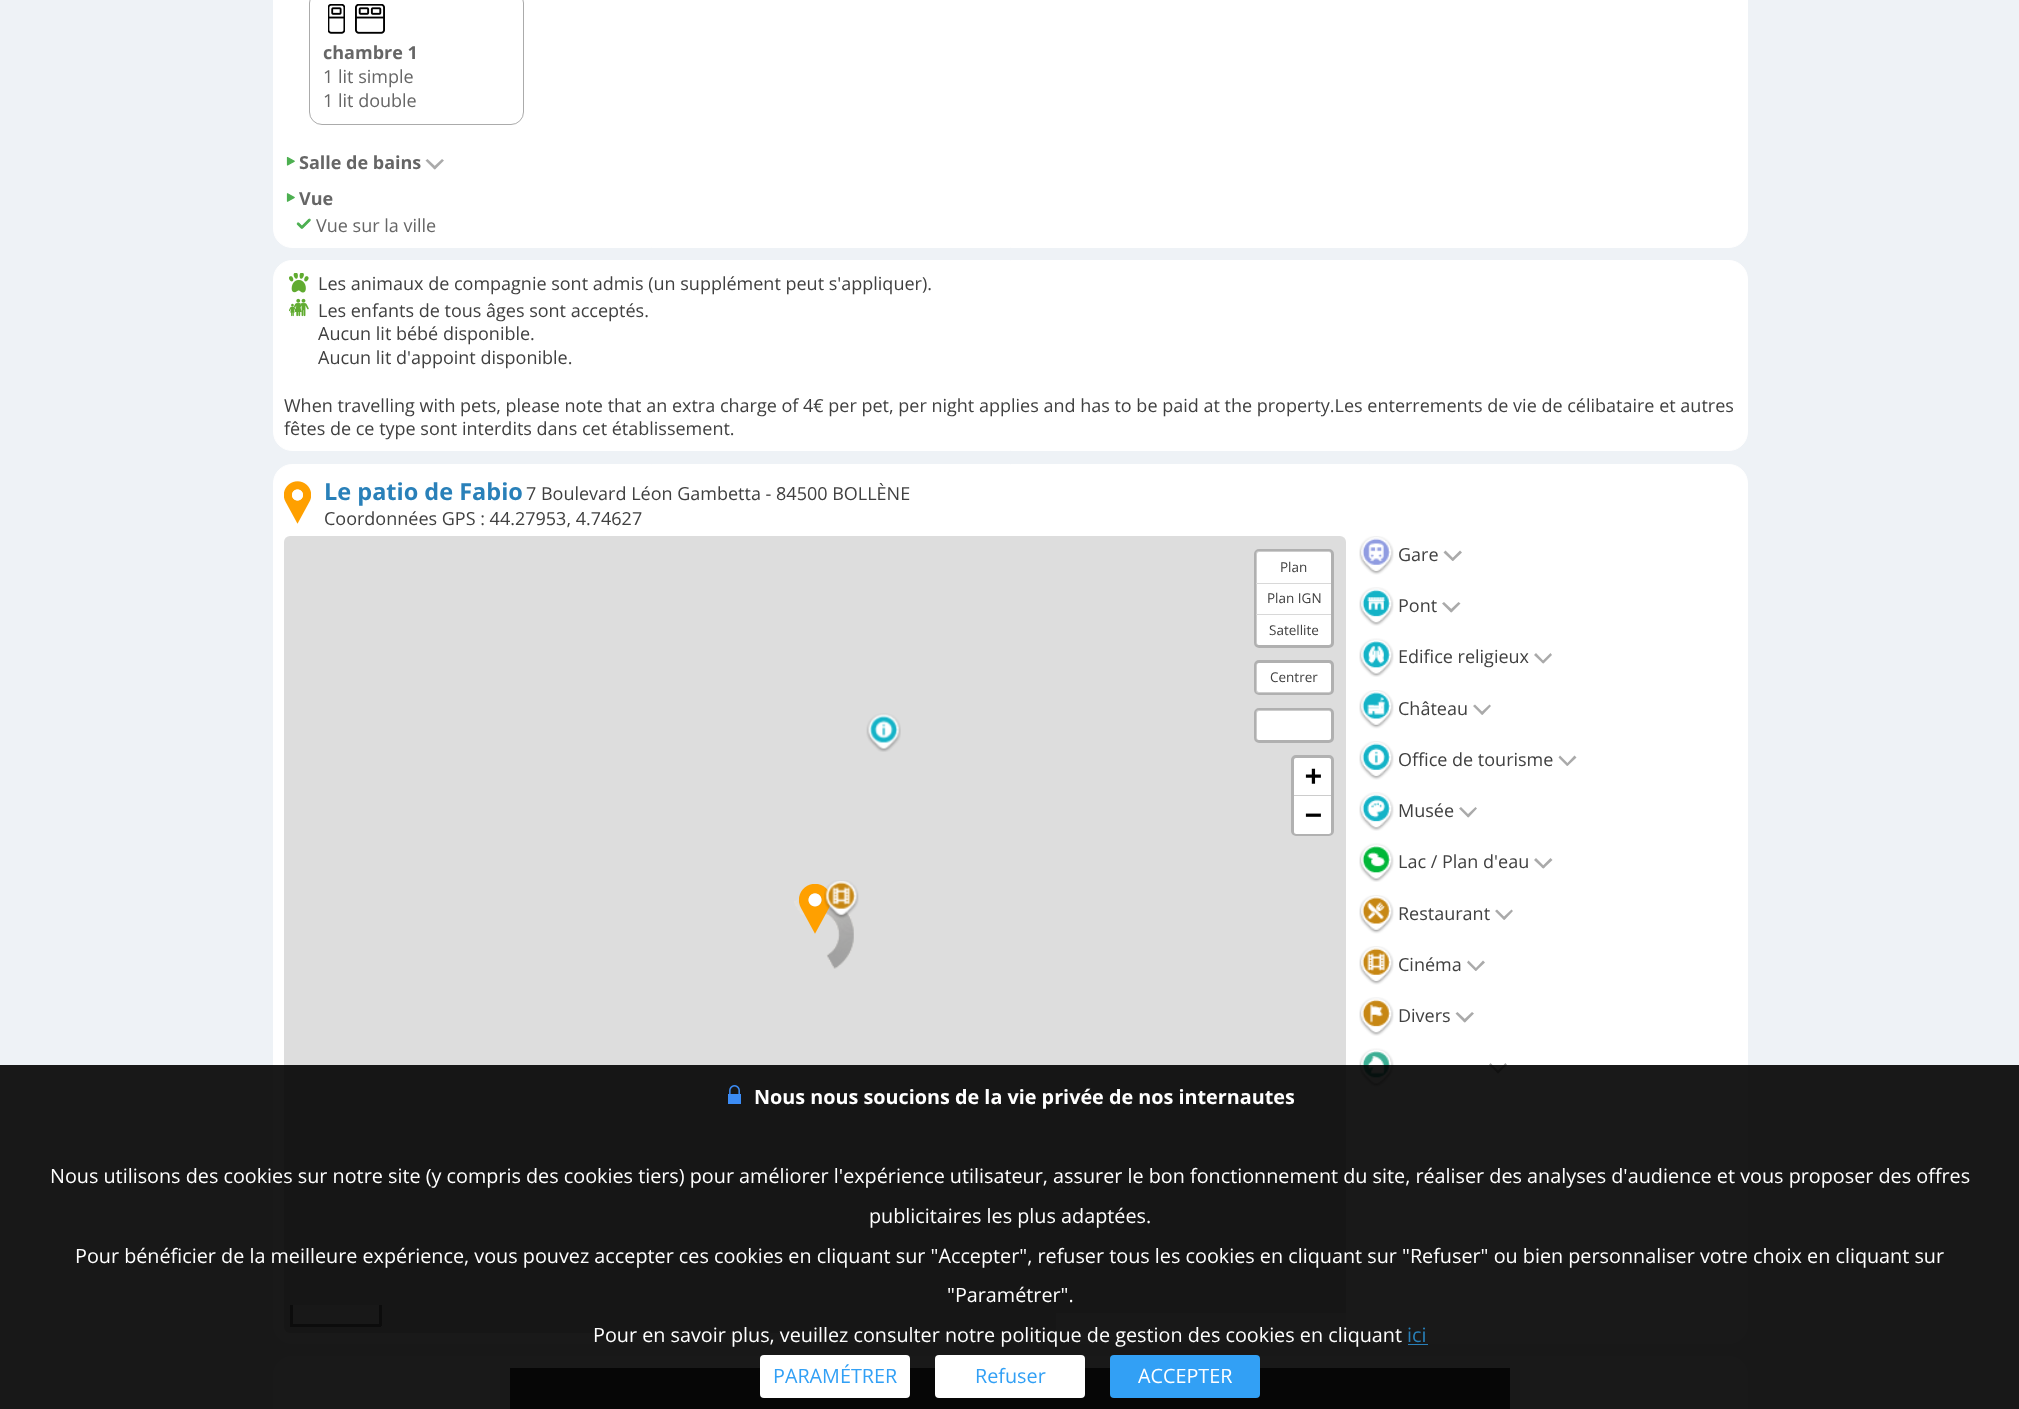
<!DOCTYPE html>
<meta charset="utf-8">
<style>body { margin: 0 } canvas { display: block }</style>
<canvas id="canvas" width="2019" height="1409"></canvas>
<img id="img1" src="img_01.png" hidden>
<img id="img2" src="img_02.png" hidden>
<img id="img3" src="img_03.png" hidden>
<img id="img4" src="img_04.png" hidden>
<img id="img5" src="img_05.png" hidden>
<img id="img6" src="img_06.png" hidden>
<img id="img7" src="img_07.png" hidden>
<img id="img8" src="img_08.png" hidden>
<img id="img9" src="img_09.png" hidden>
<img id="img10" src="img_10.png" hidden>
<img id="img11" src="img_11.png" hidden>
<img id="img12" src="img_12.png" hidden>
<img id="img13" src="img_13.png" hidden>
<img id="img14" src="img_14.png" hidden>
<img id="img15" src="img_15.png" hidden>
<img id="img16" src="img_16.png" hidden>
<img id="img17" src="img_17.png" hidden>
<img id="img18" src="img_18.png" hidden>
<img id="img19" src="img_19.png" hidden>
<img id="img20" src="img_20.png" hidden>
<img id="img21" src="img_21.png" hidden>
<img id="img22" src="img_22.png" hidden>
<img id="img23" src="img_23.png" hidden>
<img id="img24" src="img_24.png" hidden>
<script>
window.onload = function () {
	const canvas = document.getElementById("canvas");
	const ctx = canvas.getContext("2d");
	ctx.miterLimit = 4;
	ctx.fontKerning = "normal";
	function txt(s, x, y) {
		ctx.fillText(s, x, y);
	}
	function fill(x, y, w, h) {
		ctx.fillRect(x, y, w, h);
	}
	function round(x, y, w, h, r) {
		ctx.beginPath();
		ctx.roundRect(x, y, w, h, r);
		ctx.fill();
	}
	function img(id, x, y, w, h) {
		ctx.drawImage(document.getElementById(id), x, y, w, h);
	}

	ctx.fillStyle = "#EEF2F6";
	fill(0, 0, 2019, 1409);
	ctx.fillStyle = "#FFFFFF";
	ctx.beginPath();
	ctx.roundRect(273.5, -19.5, 1474, 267, 18.5);
	ctx.fill();
	ctx.strokeStyle = "#FFFFFF";
	ctx.stroke();
	ctx.beginPath();
	ctx.roundRect(309.5, -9.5, 214, 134, 12.5);
	ctx.strokeStyle = "#ABABAB";
	ctx.stroke();
	img("img1", 328, 4, 17, 30);
	img("img2", 355, 4, 30, 30);
	img("img3", 286, 156, 9, 10);
	ctx.fillStyle = "#AAAAAA";
	ctx.beginPath();
	ctx.moveTo(427.5, 159);
	ctx.lineTo(436.5, 167.5);
	ctx.lineTo(434.5, 169.5);
	ctx.lineTo(425.5, 160.5);
	ctx.closePath();
	ctx.fill();
	ctx.beginPath();
	ctx.moveTo(433, 167.5);
	ctx.lineTo(442, 159);
	ctx.lineTo(444, 160.5);
	ctx.lineTo(435, 169.5);
	ctx.closePath();
	ctx.fill();
	img("img4", 286, 193, 9, 9);
	img("img5", 296, 218, 15, 11);
	ctx.fillStyle = "#FFFFFF";
	ctx.beginPath();
	ctx.roundRect(273.5, 260.5, 1474, 190, 18.5);
	ctx.fill();
	ctx.strokeStyle = "#FFFFFF";
	ctx.stroke();
	img("img6", 289, 273, 20, 20);
	img("img7", 289, 298, 20, 19);
	ctx.beginPath();
	ctx.roundRect(273.5, 464.5, 1474, 879, 18.5);
	ctx.fill();
	ctx.stroke();
	img("img8", 284, 481, 27, 43);
	ctx.fillStyle = "#DDDDDD";
	round(284, 536, 1062, 797, 6);
	img("img9", 794, 896, 60, 73);
	img("img10", 866, 713, 35, 39);
	img("img11", 799, 884, 32, 50);
	img("img12", 824, 880, 35, 39);
	ctx.fillStyle = "#FFFFFF";
	round(1256, 551, 75, 94, 2.5);
	ctx.beginPath();
	ctx.roundRect(1255.5, 550.5, 77, 96, 3.5);
	ctx.strokeStyle = "rgba(0, 0, 0, 0.2)";
	ctx.lineWidth = 3;
	ctx.stroke();
	ctx.fillStyle = "#D8D8D8";
	fill(1256, 583, 75, 1);
	fill(1256, 614, 75, 1);
	ctx.fillStyle = "#FFFFFF";
	round(1256, 663, 75, 30, 2.5);
	ctx.beginPath();
	ctx.roundRect(1255.5, 661.5, 77, 32, 3.5);
	ctx.stroke();
	round(1256, 710, 75, 30, 2.5);
	ctx.beginPath();
	ctx.roundRect(1255.5, 709.5, 77, 32, 3.5);
	ctx.stroke();
	ctx.beginPath();
	ctx.roundRect(1292.5, 756.5, 40, 78, 3.5);
	ctx.strokeStyle = "#B1B1B1";
	ctx.stroke();
	ctx.beginPath();
	ctx.roundRect(1294, 758, 37, 38, [2.5, 2.5, 0, 0]);
	ctx.fill();
	ctx.fillStyle = "#CCCCCC";
	fill(1294, 795, 37, 1);
	ctx.fillStyle = "#FFFFFF";
	ctx.beginPath();
	ctx.roundRect(1294, 796, 37, 38, [0, 0, 2.5, 2.5]);
	ctx.fill();
	ctx.fillStyle = "#EEEEEE";
	fill(293, 1305, 86, 19);
	ctx.fillStyle = "#777777";
	fill(379, 1305, 3, 21);
	fill(290, 1324, 91, 3);
	fill(290, 1305, 3, 21);
	ctx.fillStyle = "rgba(255, 255, 255, 0.7)";
	ctx.beginPath();
	ctx.roundRect(1056, 1313, 290, 20, [0, 0, 6, 0]);
	ctx.fill();
	img("img13", 1359, 536, 35, 39);
	ctx.fillStyle = "#AAAAAA";
	ctx.beginPath();
	ctx.moveTo(1445.5, 550.5);
	ctx.lineTo(1454.5, 559.5);
	ctx.lineTo(1452.5, 561);
	ctx.lineTo(1443.5, 552.5);
	ctx.closePath();
	ctx.fill();
	ctx.beginPath();
	ctx.moveTo(1451, 559.5);
	ctx.lineTo(1460, 550.5);
	ctx.lineTo(1462, 552.5);
	ctx.lineTo(1453, 561);
	ctx.closePath();
	ctx.moveTo(1444, 602);
	ctx.lineTo(1453, 610.5);
	ctx.lineTo(1451, 612.5);
	ctx.lineTo(1442, 603.5);
	ctx.closePath();
	ctx.fill();
	img("img14", 1359, 587, 35, 39);
	ctx.beginPath();
	ctx.moveTo(1449.5, 610.5);
	ctx.lineTo(1458.5, 602);
	ctx.lineTo(1460.5, 603.5);
	ctx.lineTo(1451.5, 612.5);
	ctx.closePath();
	ctx.fill();
	img("img15", 1359, 638, 35, 39);
	ctx.beginPath();
	ctx.moveTo(1536, 653);
	ctx.lineTo(1544.5, 662);
	ctx.lineTo(1543, 663.5);
	ctx.lineTo(1534, 655);
	ctx.closePath();
	ctx.fill();
	ctx.beginPath();
	ctx.moveTo(1541.5, 662);
	ctx.lineTo(1550.5, 653);
	ctx.lineTo(1552, 655);
	ctx.lineTo(1543.5, 663.5);
	ctx.closePath();
	ctx.fill();
	img("img16", 1359, 690, 35, 39);
	ctx.beginPath();
	ctx.moveTo(1475, 704.5);
	ctx.lineTo(1483.5, 713);
	ctx.lineTo(1482, 715);
	ctx.lineTo(1473, 706);
	ctx.closePath();
	ctx.fill();
	ctx.beginPath();
	ctx.moveTo(1480.5, 713);
	ctx.lineTo(1489.5, 704.5);
	ctx.lineTo(1491, 706);
	ctx.lineTo(1482.5, 715);
	ctx.closePath();
	ctx.fill();
	img("img17", 1359, 741, 35, 39);
	ctx.beginPath();
	ctx.moveTo(1560, 755.5);
	ctx.lineTo(1569, 764.5);
	ctx.lineTo(1567, 766);
	ctx.lineTo(1558.5, 757.5);
	ctx.closePath();
	ctx.fill();
	ctx.beginPath();
	ctx.moveTo(1566, 764.5);
	ctx.lineTo(1574.5, 755.5);
	ctx.lineTo(1576.5, 757.5);
	ctx.lineTo(1567.5, 766);
	ctx.closePath();
	ctx.fill();
	img("img18", 1359, 792, 35, 39);
	ctx.beginPath();
	ctx.moveTo(1461, 807);
	ctx.lineTo(1469.5, 815.5);
	ctx.lineTo(1468, 817.5);
	ctx.lineTo(1459, 808.5);
	ctx.closePath();
	ctx.fill();
	ctx.beginPath();
	ctx.moveTo(1466.5, 815.5);
	ctx.lineTo(1475.5, 807);
	ctx.lineTo(1477, 808.5);
	ctx.lineTo(1468.5, 817.5);
	ctx.closePath();
	ctx.fill();
	img("img19", 1359, 843, 35, 39);
	ctx.beginPath();
	ctx.moveTo(1536, 858);
	ctx.lineTo(1545, 867);
	ctx.lineTo(1543, 868.5);
	ctx.lineTo(1534, 860);
	ctx.closePath();
	ctx.fill();
	img("img20", 1359, 895, 35, 39);
	img("img21", 1359, 946, 35, 39);
	img("img22", 1359, 997, 35, 39);
	img("img23", 1359, 1048, 35, 39);
	ctx.fillStyle = "#FFFFFF";
	ctx.beginPath();
	ctx.roundRect(273.5, 1356.5, 1474, 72, 18.5);
	ctx.fill();
	ctx.strokeStyle = "#FFFFFF";
	ctx.lineWidth = 1;
	ctx.stroke();
	ctx.fillStyle = "#404040";
	fill(510, 1368, 1000, 41);
	ctx.font = "bold 18px Open Sans";
	ctx.fillStyle = "#666666";
	txt("chambre 1", 323, 59);
	ctx.font = "18px Open Sans";
	txt("1 lit simple", 323, 83);
	txt("1 lit double", 323, 107);
	ctx.font = "bold 18px Open Sans";
	txt("Salle de bains", 299, 169);
	txt("Vue", 299, 205);
	ctx.font = "18px Open Sans";
	txt("Vue sur la ville", 316, 232);
	ctx.fillStyle = "#404040";
	txt("Les animaux de compagnie sont admis (un supplément peut s'appliquer).", 318, 290);
	txt("Les enfants de tous âges sont acceptés.", 318, 317);
	txt("Aucun lit bébé disponible.", 318, 340);
	txt("Aucun lit d'appoint disponible.", 318, 364);
	txt("When travelling with pets, please note that an extra charge of 4€ per pet, per night applies and has to be paid at the property.Les enterrements de vie de célibataire et autres", 284, 412);
	txt("fêtes de ce type sont interdits dans cet établissement.", 284, 435);
	ctx.font = "bold 23.5px Open Sans";
	ctx.fillStyle = "#2980B9";
	txt("Le patio de Fabio", 324, 500);
	ctx.font = "18px Open Sans";
	ctx.fillStyle = "#404040";
	txt("7 Boulevard Léon Gambetta - 84500 BOLLÈNE", 526, 500);
	txt("Coordonnées GPS : 44.27953, 4.74627", 324, 525);
	ctx.font = "13.5px Open Sans";
	txt("Plan", 1280, 572);
	txt("Plan IGN", 1267, 603);
	txt("Satellite", 1269, 635);
	txt("Centrer", 1270, 682);
	ctx.font = "bold 28px DejaVu Sans Mono";
	ctx.fillStyle = "#000000";
	txt("+", 1305, 785);
	txt("−", 1305, 824);
	ctx.font = "18px Open Sans";
	ctx.fillStyle = "#404040";
	txt("Gare", 1398, 561);
	txt("Pont", 1398, 612);
	txt("Edifice religieux", 1398, 663);
	txt("Château", 1398, 715);
	txt("Office de tourisme", 1398, 766);
	txt("Musée", 1398, 817);
	txt("Lac / Plan d'eau", 1398, 868);
	ctx.fillStyle = "#AAAAAA";
	ctx.beginPath();
	ctx.moveTo(1541.5, 867);
	ctx.lineTo(1550.5, 858);
	ctx.lineTo(1552.5, 860);
	ctx.lineTo(1543.5, 868.5);
	ctx.closePath();
	ctx.moveTo(1497, 909.5);
	ctx.lineTo(1505.5, 918);
	ctx.lineTo(1504, 920);
	ctx.lineTo(1495, 911);
	ctx.closePath();
	ctx.fill();
	ctx.fillStyle = "#404040";
	txt("Restaurant", 1398, 920);
	ctx.fillStyle = "#AAAAAA";
	ctx.beginPath();
	ctx.moveTo(1502.5, 918);
	ctx.lineTo(1511.5, 909.5);
	ctx.lineTo(1513, 911);
	ctx.lineTo(1504.5, 920);
	ctx.closePath();
	ctx.moveTo(1468.5, 960.5);
	ctx.lineTo(1477.5, 969.5);
	ctx.lineTo(1475.5, 971);
	ctx.lineTo(1467, 962.5);
	ctx.closePath();
	ctx.fill();
	ctx.fillStyle = "#404040";
	txt("Cinéma", 1398, 971);
	ctx.fillStyle = "#AAAAAA";
	ctx.beginPath();
	ctx.moveTo(1474.5, 969.5);
	ctx.lineTo(1483, 960.5);
	ctx.lineTo(1485, 962.5);
	ctx.lineTo(1476, 971);
	ctx.closePath();
	ctx.moveTo(1457.5, 1012);
	ctx.lineTo(1466.5, 1020.5);
	ctx.lineTo(1464.5, 1022.5);
	ctx.lineTo(1455.5, 1013.5);
	ctx.closePath();
	ctx.fill();
	ctx.fillStyle = "#404040";
	txt("Divers", 1398, 1022);
	ctx.fillStyle = "#AAAAAA";
	ctx.beginPath();
	ctx.moveTo(1463, 1020.5);
	ctx.lineTo(1472, 1012);
	ctx.lineTo(1474, 1013.5);
	ctx.lineTo(1465, 1022.5);
	ctx.closePath();
	ctx.moveTo(1490.5, 1063);
	ctx.lineTo(1499.5, 1072);
	ctx.lineTo(1498, 1073.5);
	ctx.lineTo(1489, 1065);
	ctx.closePath();
	ctx.fill();
	ctx.beginPath();
	ctx.moveTo(1496.5, 1072);
	ctx.lineTo(1505.5, 1063);
	ctx.lineTo(1507, 1065);
	ctx.lineTo(1498, 1073.5);
	ctx.closePath();
	ctx.fill();
	ctx.fillStyle = "rgba(0, 0, 0, 0.9)";
	fill(0, 1065, 2019, 344);
	img("img24", 728, 1085, 13, 19);
	ctx.font = "bold 19.8px Open Sans";
	ctx.fillStyle = "#FFFFFF";
	txt("Nous nous soucions de la vie privée de nos internautes", 754, 1104);
	ctx.font = "19.8px Open Sans";
	txt("Nous utilisons des cookies sur notre site (y compris des cookies tiers) pour améliorer l'expérience utilisateur, assurer le bon fonctionnement du site, réaliser des analyses d'audience et vous proposer des offres", 50, 1183);
	txt("publicitaires les plus adaptées.", 869, 1223);
	txt("Pour bénéficier de la meilleure expérience, vous pouvez accepter ces cookies en cliquant sur \"Accepter\", refuser tous les cookies en cliquant sur \"Refuser\" ou bien personnaliser votre choix en cliquant sur", 75, 1263);
	txt("\"Paramétrer\".", 947, 1302);
	txt("Pour en savoir plus, veuillez consulter notre politique de gestion des cookies en cliquant", 593, 1342);
	ctx.fillStyle = "#2980B9";
	txt("ici", 1407, 1342);
	fill(1408, 1344, 20, 1);
	ctx.fillStyle = "#FFFFFF";
	round(760, 1355, 150, 43, 4);
	ctx.fillStyle = "#32A0F5";
	txt("PARAMÉTRER", 773, 1383);
	ctx.fillStyle = "#FFFFFF";
	round(935, 1355, 150, 43, 4);
	ctx.fillStyle = "#32A0F5";
	txt("Refuser", 975, 1383);
	round(1110, 1355, 150, 43, 4);
	ctx.fillStyle = "#FFFFFF";
	txt("ACCEPTER", 1138, 1383);
};
</script>
